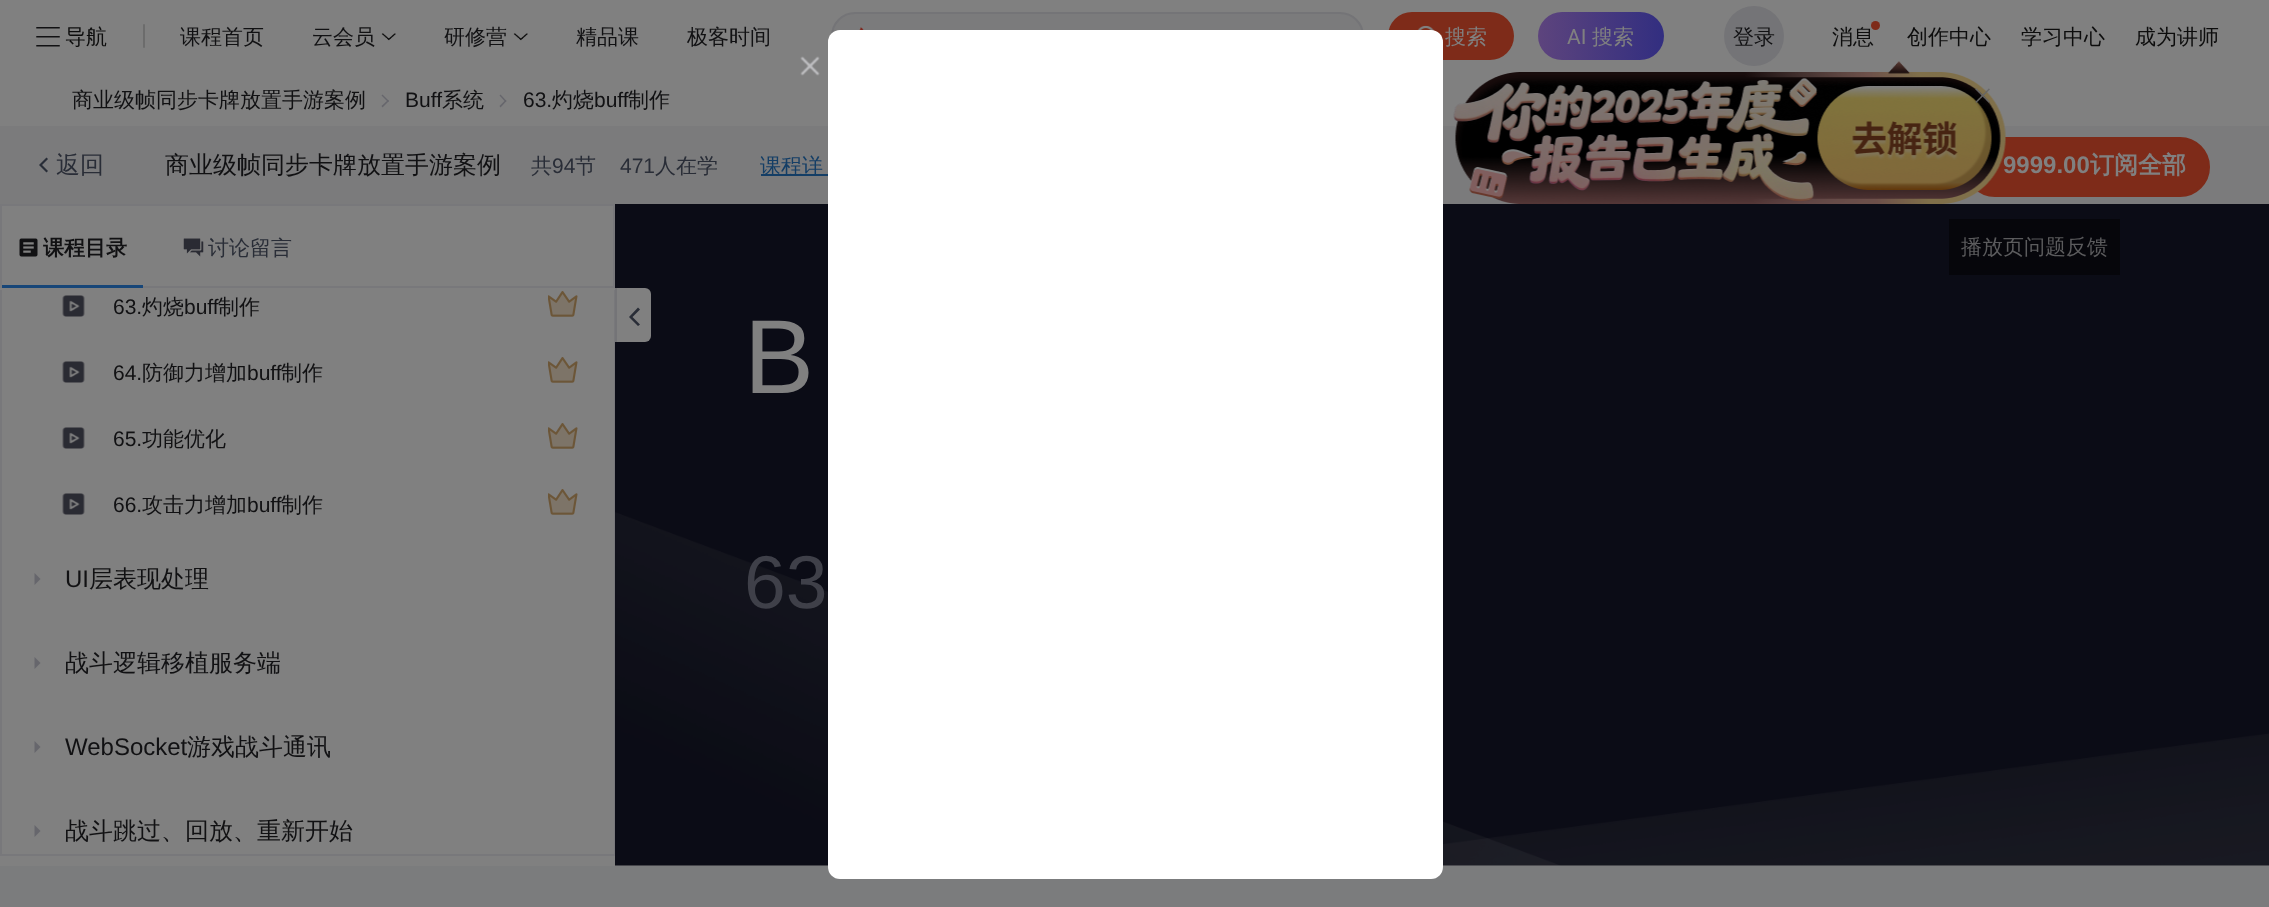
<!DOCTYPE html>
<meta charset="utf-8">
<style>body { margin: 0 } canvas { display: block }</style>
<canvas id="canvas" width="2269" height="907"></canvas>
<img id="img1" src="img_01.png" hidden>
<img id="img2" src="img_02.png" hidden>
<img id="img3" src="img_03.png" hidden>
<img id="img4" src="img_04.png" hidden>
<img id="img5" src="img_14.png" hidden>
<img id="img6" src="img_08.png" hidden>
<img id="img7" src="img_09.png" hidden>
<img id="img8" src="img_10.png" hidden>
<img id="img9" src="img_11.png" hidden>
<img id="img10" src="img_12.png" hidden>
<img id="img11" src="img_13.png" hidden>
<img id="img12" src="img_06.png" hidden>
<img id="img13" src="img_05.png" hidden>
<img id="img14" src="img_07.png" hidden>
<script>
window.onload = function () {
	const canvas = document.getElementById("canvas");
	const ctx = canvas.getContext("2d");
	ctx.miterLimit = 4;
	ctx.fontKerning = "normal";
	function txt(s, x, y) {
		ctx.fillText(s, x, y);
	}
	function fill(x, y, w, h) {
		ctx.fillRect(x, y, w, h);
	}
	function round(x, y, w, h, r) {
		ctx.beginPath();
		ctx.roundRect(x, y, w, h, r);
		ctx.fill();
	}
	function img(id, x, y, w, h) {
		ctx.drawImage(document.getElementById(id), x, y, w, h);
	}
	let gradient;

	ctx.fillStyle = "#808080";
	fill(0, 0, 2269, 907);
	img("img1", 36, 27, 24, 20);
	ctx.fillStyle = "#6C6C6C";
	round(143, 24, 2, 24, 1);
	img("img2", 381, 33, 15, 8);
	img("img2", 513, 33, 15, 8);
	ctx.fillStyle = "#7B7B7C";
	ctx.beginPath();
	ctx.roundRect(832, 13, 531, 46, 23);
	ctx.fill();
	ctx.strokeStyle = "#747477";
	ctx.lineWidth = 2;
	ctx.stroke();
	ctx.fillStyle = "#7E2B19";
	round(1388, 12, 126, 48, 24);
	img("img3", 1417, 25, 18, 6);
	gradient = ctx.createLinearGradient(1538, 36, 1664, 36);
	gradient.addColorStop(0, "#5D447D");
	gradient.addColorStop(1, "#322E80");
	ctx.fillStyle = gradient;
	round(1538, 12, 126, 48, 24);
	img("img4", 859, 27, 5, 3);
	ctx.fillStyle = "#747477";
	ctx.beginPath();
	ctx.arc(1754, 36, 30, 0, Math.PI * 2);
	ctx.fill();
	ctx.fillStyle = "#7B7C7D";
	fill(0, 866, 2269, 41);
	ctx.fillStyle = "#7B7B7C";
	fill(0, 126, 2269, 78);
	img("img5", 615, 204, 1654, 662);
	ctx.fillStyle = "#FFFFFF";
	round(828, 30, 615, 849, 12);
	img("img6", 800, 56, 20, 20);
	ctx.fillStyle = "#66666C";
	ctx.beginPath();
	ctx.moveTo(382.5, 94.5);
	ctx.lineTo(389, 101);
	ctx.lineTo(388, 102);
	ctx.lineTo(381.5, 95.5);
	ctx.closePath();
	ctx.fill();
	ctx.beginPath();
	ctx.moveTo(388, 100);
	ctx.lineTo(389, 101);
	ctx.lineTo(382.5, 107.5);
	ctx.lineTo(381.5, 106);
	ctx.closePath();
	ctx.fill();
	ctx.beginPath();
	ctx.moveTo(500.5, 94.5);
	ctx.lineTo(506.5, 101);
	ctx.lineTo(505.5, 102);
	ctx.lineTo(499.5, 95.5);
	ctx.closePath();
	ctx.fill();
	ctx.beginPath();
	ctx.moveTo(505.5, 100);
	ctx.lineTo(506.5, 101);
	ctx.lineTo(500.5, 107.5);
	ctx.lineTo(499.5, 106);
	ctx.closePath();
	ctx.fill();
	img("img7", 39, 157, 9, 16);
	ctx.fillStyle = "#143E66";
	fill(761, 174, 67, 2);
	ctx.fillStyle = "#7E2B19";
	ctx.beginPath();
	ctx.roundRect(1966, 138, 243, 58, 29);
	ctx.fill();
	ctx.strokeStyle = "#7E2B19";
	ctx.stroke();
	ctx.strokeStyle = "#78787B";
	ctx.strokeRect(1, 205, 613, 82);
	img("img8", 19, 238, 19, 19);
	img("img9", 183, 238, 21, 19);
	ctx.fillStyle = "#174678";
	fill(2, 285, 141, 3);
	ctx.fillStyle = "#78787B";
	fill(614, 290, 1, 565);
	fill(0, 854, 615, 2);
	fill(0, 290, 2, 565);
	img("img10", 62, 295, 23, 22);
	img("img11", 548, 291, 30, 26);
	img("img10", 62, 361, 23, 22);
	img("img11", 548, 357, 30, 26);
	img("img10", 62, 427, 23, 22);
	img("img11", 548, 423, 30, 26);
	img("img10", 62, 493, 23, 22);
	img("img11", 548, 489, 30, 26);
	ctx.fillStyle = "#66666C";
	ctx.beginPath();
	ctx.moveTo(34.5, 573);
	ctx.lineTo(40.5, 579);
	ctx.lineTo(34.5, 585);
	ctx.closePath();
	ctx.fill();
	ctx.beginPath();
	ctx.moveTo(34.5, 657);
	ctx.lineTo(40.5, 663);
	ctx.lineTo(34.5, 669);
	ctx.closePath();
	ctx.fill();
	ctx.beginPath();
	ctx.moveTo(34.5, 741);
	ctx.lineTo(40.5, 747);
	ctx.lineTo(34.5, 753);
	ctx.closePath();
	ctx.fill();
	ctx.beginPath();
	ctx.moveTo(34.5, 825);
	ctx.lineTo(40.5, 831);
	ctx.lineTo(34.5, 837);
	ctx.closePath();
	ctx.fill();
	ctx.fillStyle = "#808080";
	ctx.beginPath();
	ctx.roundRect(615, 288, 36, 54, [0, 6, 6, 0]);
	ctx.fill();
	ctx.fillStyle = "#747477";
	fill(615, 288, 2, 54);
	ctx.fillStyle = "#292D37";
	ctx.beginPath();
	ctx.moveTo(640, 309.5);
	ctx.lineTo(638, 307.5);
	ctx.lineTo(629, 317);
	ctx.lineTo(638, 326);
	ctx.lineTo(640, 324.5);
	ctx.lineTo(632.5, 317);
	ctx.closePath();
	ctx.fill();
	ctx.fillStyle = "#06060B";
	fill(1949, 219, 171, 56);
	ctx.font = "500 21px WenQuanYi Zen Hei";
	ctx.fillStyle = "#0D0D0D";
	txt("导航", 65, 44);
	ctx.fillStyle = "#111113";
	txt("课程首页", 180, 44);
	txt("云会员", 312, 44);
	txt("研修营", 444, 44);
	txt("精品课", 576, 44);
	txt("极客时间", 687, 44);
	ctx.fillStyle = "#808080";
	txt("搜索", 1445, 44);
	ctx.font = "21px Roboto";
	txt("AI", 1567, 44);
	ctx.font = "500 21px WenQuanYi Zen Hei";
	txt("搜索", 1592, 44);
	ctx.fillStyle = "#111113";
	txt("登录", 1733, 44);
	ctx.fillStyle = "#0D0D0D";
	txt("消息", 1832, 44);
	ctx.fillStyle = "#7E2B19";
	ctx.beginPath();
	ctx.arc(1875.5, 25.5, 4.5, 0, Math.PI * 2);
	ctx.fill();
	ctx.fillStyle = "#0D0D0D";
	txt("创作中心", 1907, 44);
	txt("学习中心", 2021, 44);
	txt("成为讲师", 2135, 44);
	ctx.fillStyle = "#111113";
	txt("商业级帧同步卡牌放置手游案例", 72, 107);
	ctx.font = "21px Liberation Sans";
	txt("Buff", 405, 107);
	ctx.font = "500 21px WenQuanYi Zen Hei";
	txt("系统", 442, 107);
	ctx.font = "21px Liberation Sans";
	txt("63.", 523, 107);
	ctx.font = "500 21px WenQuanYi Zen Hei";
	txt("灼烧", 552, 107);
	ctx.font = "21px Liberation Sans";
	txt("buff", 594, 107);
	ctx.font = "500 21px WenQuanYi Zen Hei";
	txt("制作", 628, 107);
	ctx.font = "500 24px WenQuanYi Zen Hei";
	ctx.fillStyle = "#292D37";
	txt("返回", 56, 173);
	ctx.fillStyle = "#111113";
	txt("商业级帧同步卡牌放置手游案例", 165, 173);
	ctx.font = "500 21px WenQuanYi Zen Hei";
	ctx.fillStyle = "#292D37";
	txt("共", 531, 173);
	ctx.font = "21px Liberation Sans";
	txt("94", 552, 173);
	ctx.font = "500 21px WenQuanYi Zen Hei";
	txt("节", 575, 173);
	ctx.font = "21px Liberation Sans";
	txt("471", 620, 173);
	ctx.font = "500 21px WenQuanYi Zen Hei";
	txt("人在学", 655, 173);
	ctx.fillStyle = "#143E66";
	txt("课程详", 760, 173);
	ctx.font = "bold 24px Liberation Sans";
	ctx.fillStyle = "#808080";
	txt("9999.00", 2003, 173);
	img("img12", 1453, 72, 553, 132);
	img("img13", 1888, 61, 22, 13);
	img("img14", 1975, 88, 15, 15);
	ctx.font = "bold 24px WenQuanYi Zen Hei";
	txt("订阅全部", 2090, 173);
	ctx.font = "bold 21px WenQuanYi Zen Hei";
	ctx.fillStyle = "#111113";
	txt("课程目录", 43, 255);
	ctx.font = "500 21px WenQuanYi Zen Hei";
	ctx.fillStyle = "#292D37";
	txt("讨论留言", 208, 255);
	ctx.font = "21px Liberation Sans";
	ctx.fillStyle = "#111113";
	txt("63.", 113, 314);
	ctx.font = "500 21px WenQuanYi Zen Hei";
	txt("灼烧", 142, 314);
	ctx.font = "21px Liberation Sans";
	txt("buff", 184, 314);
	ctx.font = "500 21px WenQuanYi Zen Hei";
	txt("制作", 218, 314);
	ctx.font = "21px Liberation Sans";
	txt("64.", 113, 380);
	ctx.font = "500 21px WenQuanYi Zen Hei";
	txt("防御力增加", 142, 380);
	ctx.font = "21px Liberation Sans";
	txt("buff", 247, 380);
	ctx.font = "500 21px WenQuanYi Zen Hei";
	txt("制作", 281, 380);
	ctx.font = "21px Liberation Sans";
	txt("65.", 113, 446);
	ctx.font = "500 21px WenQuanYi Zen Hei";
	txt("功能优化", 142, 446);
	ctx.font = "21px Liberation Sans";
	txt("66.", 113, 512);
	ctx.font = "500 21px WenQuanYi Zen Hei";
	txt("攻击力增加", 142, 512);
	ctx.font = "21px Liberation Sans";
	txt("buff", 247, 512);
	ctx.font = "500 21px WenQuanYi Zen Hei";
	txt("制作", 281, 512);
	ctx.font = "24px Liberation Sans";
	txt("UI", 65, 587);
	ctx.font = "500 24px WenQuanYi Zen Hei";
	txt("层表现处理", 89, 587);
	txt("战斗逻辑移植服务端", 65, 671);
	ctx.font = "24px Liberation Sans";
	txt("WebSocket", 65, 755);
	ctx.font = "500 24px WenQuanYi Zen Hei";
	txt("游戏战斗通讯", 187, 755);
	txt("战斗跳过、回放、重新开始", 65, 839);
	ctx.font = "105px Liberation Sans";
	ctx.fillStyle = "#808080";
	txt("B", 744, 393);
	ctx.font = "75px Liberation Sans";
	ctx.fillStyle = "#3F4049";
	txt("63", 744, 608);
	ctx.font = "500 21px WenQuanYi Zen Hei";
	ctx.fillStyle = "#5B5B5D";
	txt("播放页问题反馈", 1961, 254);
};
</script>
